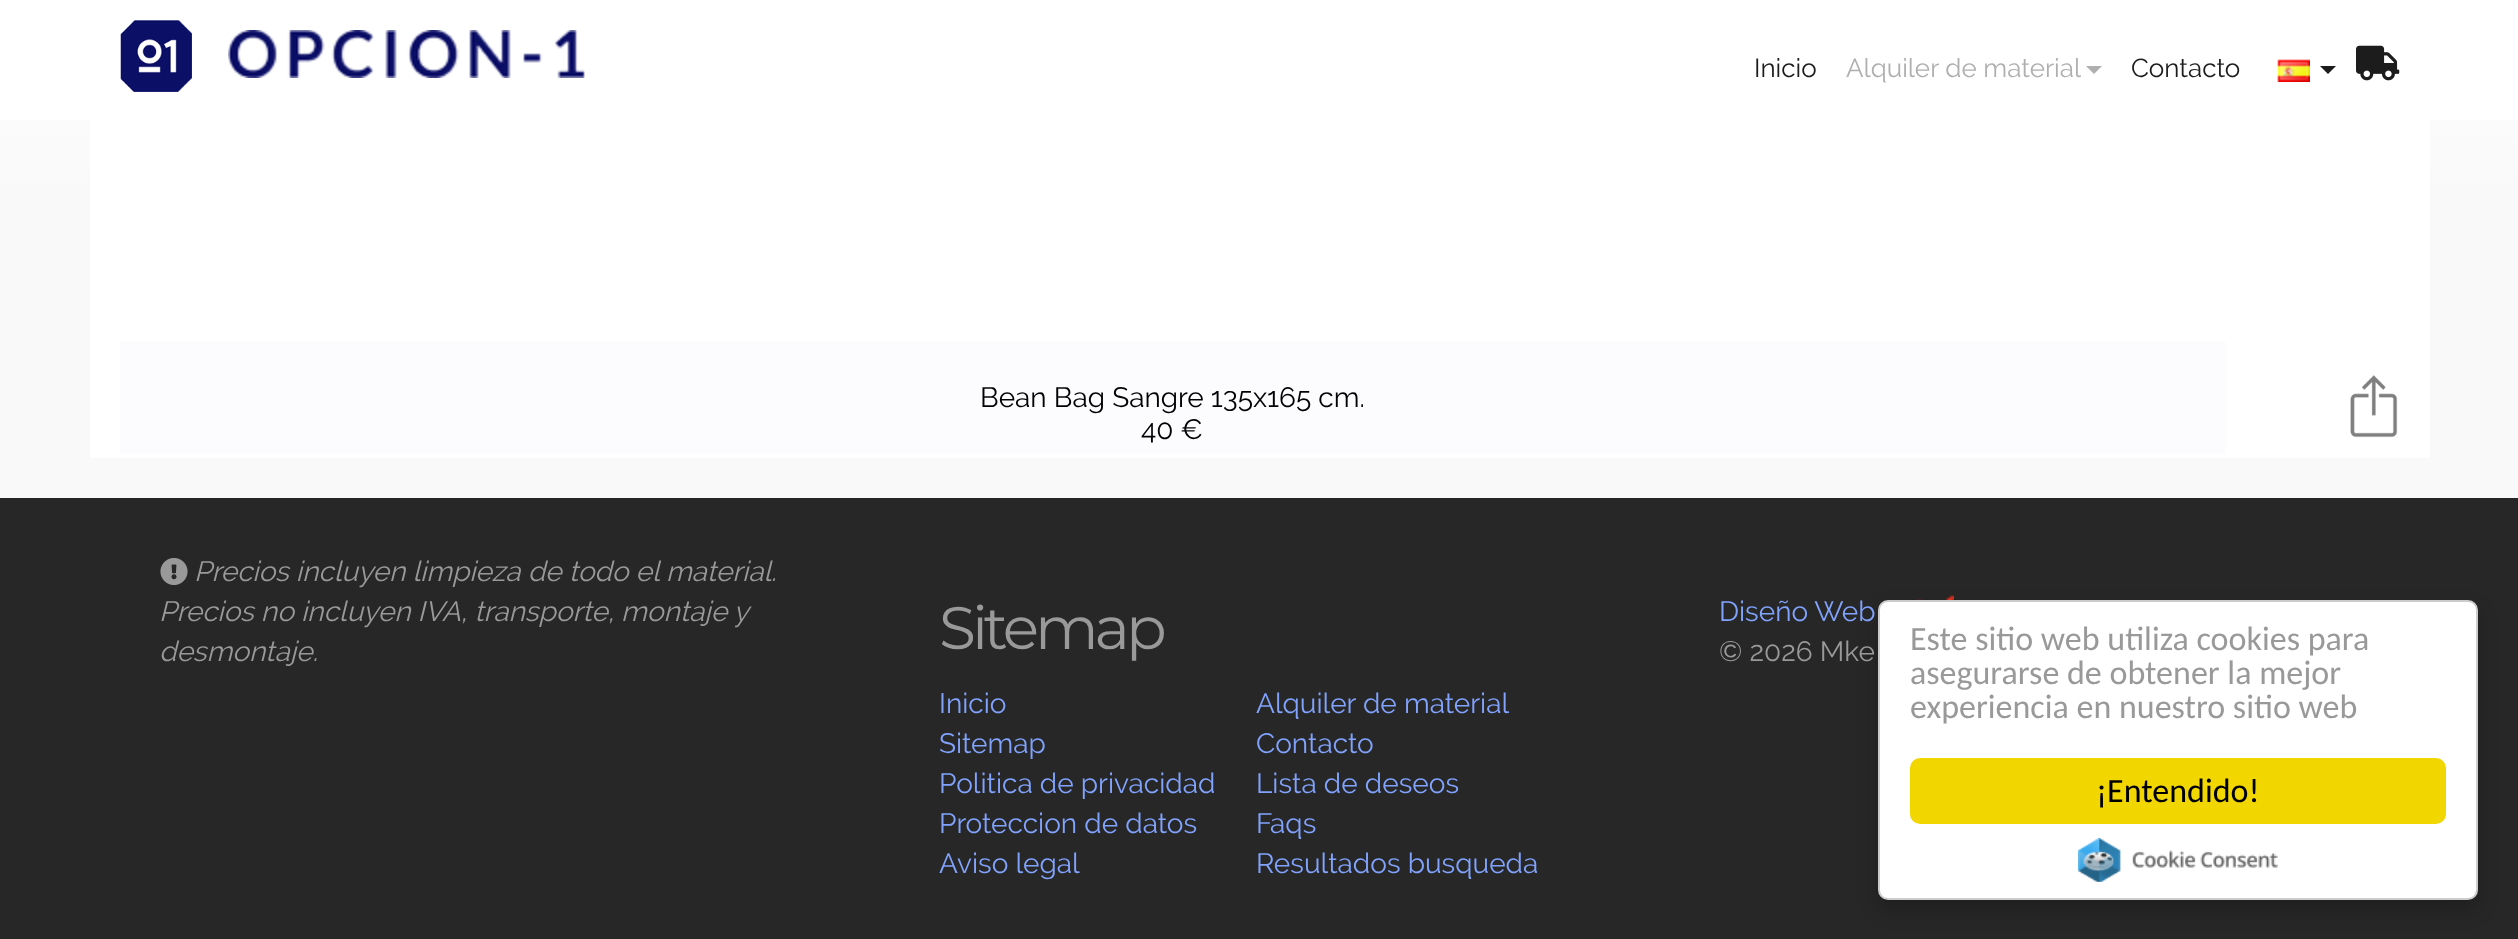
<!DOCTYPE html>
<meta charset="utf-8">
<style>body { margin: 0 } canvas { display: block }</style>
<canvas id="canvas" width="2518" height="939"></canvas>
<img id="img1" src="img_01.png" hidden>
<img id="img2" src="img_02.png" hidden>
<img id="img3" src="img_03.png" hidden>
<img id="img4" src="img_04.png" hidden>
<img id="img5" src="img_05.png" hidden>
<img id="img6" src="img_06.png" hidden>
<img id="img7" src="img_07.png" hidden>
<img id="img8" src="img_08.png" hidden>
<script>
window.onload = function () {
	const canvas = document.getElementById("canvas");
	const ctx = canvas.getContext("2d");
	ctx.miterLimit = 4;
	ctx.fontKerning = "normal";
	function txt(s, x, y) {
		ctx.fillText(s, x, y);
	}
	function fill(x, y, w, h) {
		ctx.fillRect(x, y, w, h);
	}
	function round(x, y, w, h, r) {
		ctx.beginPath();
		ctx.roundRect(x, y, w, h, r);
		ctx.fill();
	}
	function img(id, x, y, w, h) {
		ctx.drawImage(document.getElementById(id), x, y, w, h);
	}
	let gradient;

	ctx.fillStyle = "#FFFFFF";
	fill(0, 0, 2518, 939);
	gradient = ctx.createLinearGradient(1259, 0, 1259, 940);
	gradient.addColorStop(0, "#FFFFFF");
	gradient.addColorStop(0.2, "#F9F9F9");
	ctx.fillStyle = gradient;
	fill(0, 120, 2518, 378);
	img("img1", 120, 20, 72, 72);
	img("img2", 228, 30, 357, 48);
	ctx.fillStyle = "#AFAFAF";
	ctx.beginPath();
	ctx.moveTo(2086, 66);
	ctx.lineTo(2102, 66);
	ctx.lineTo(2094, 74);
	ctx.closePath();
	ctx.fill();
	img("img3", 2277, 59, 33, 23);
	ctx.fillStyle = "#1C1C1C";
	ctx.beginPath();
	ctx.moveTo(2320, 66);
	ctx.lineTo(2336, 66);
	ctx.lineTo(2328, 74);
	ctx.closePath();
	ctx.fill();
	img("img4", 2356, 45, 44, 36);
	ctx.fillStyle = "#FFFFFF";
	fill(90, 120, 2340, 338);
	ctx.fillStyle = "#FCFCFF";
	fill(120, 342, 2106, 112);
	img("img5", 2350, 375, 48, 63);
	ctx.fillStyle = "#272727";
	fill(0, 498, 2518, 441);
	img("img6", 160, 558, 28, 27);
	img("img7", 1916, 595, 38, 5);
	ctx.fillStyle = "rgba(0, 0, 0, 0.2)";
	ctx.filter = "blur(10px)";
	ctx.beginPath();
	ctx.roundRect(1878, 610, 600, 300, 10);
	ctx.fill();
	ctx.filter = "none";
	ctx.fillStyle = "#FFFFFF";
	ctx.beginPath();
	ctx.roundRect(1879, 601, 598, 298, 9);
	ctx.fill();
	ctx.strokeStyle = "#CCCCCC";
	ctx.lineWidth = 2;
	ctx.stroke();
	ctx.fillStyle = "#F1D600";
	round(1910, 758, 536, 66, 10);
	img("img8", 2078, 838, 200, 44);
	ctx.font = "26px Raleway";
	ctx.fillStyle = "#1C1C1C";
	txt("Inicio", 1754, 77);
	ctx.fillStyle = "#AFAFAF";
	txt("Alquiler de material", 1846, 77);
	ctx.fillStyle = "#1C1C1C";
	txt("Contacto", 2131, 77);
	ctx.font = "28px Raleway";
	ctx.fillStyle = "#000000";
	txt("Bean Bag Sangre 135x165 cm.", 980, 407);
	txt("40 €", 1141, 439);
	ctx.font = "italic 28px Raleway";
	ctx.fillStyle = "#999999";
	txt("Precios incluyen limpieza de todo el material.", 194, 581);
	txt("Precios no incluyen IVA, transporte, montaje y", 159, 621);
	txt("desmontaje.", 159, 661);
	ctx.letterSpacing = "-4px";
	ctx.font = "60px Montserrat";
	txt("Sitemap", 939, 649);
	ctx.letterSpacing = "0px";
	ctx.font = "28px Raleway";
	ctx.fillStyle = "#81A3FD";
	txt("Inicio", 939, 713);
	txt("Sitemap", 939, 753);
	txt("Politica de privacidad", 939, 793);
	txt("Proteccion de datos", 939, 833);
	txt("Aviso legal", 939, 873);
	txt("Alquiler de material", 1256, 713);
	txt("Contacto", 1256, 753);
	txt("Lista de deseos", 1256, 793);
	txt("Faqs", 1256, 833);
	txt("Resultados busqueda", 1256, 873);
	txt("Diseño Web", 1719, 621);
	ctx.fillStyle = "#999999";
	txt("© 2026 Mke", 1719, 661);
	ctx.font = "34px Carlito";
	txt("Este sitio web utiliza cookies para", 1910, 650);
	txt("asegurarse de obtener la mejor", 1910, 684);
	txt("experiencia en nuestro sitio web", 1910, 718);
	ctx.fillStyle = "#000000";
	txt("¡Entendido!", 2096, 802);
};
</script>
